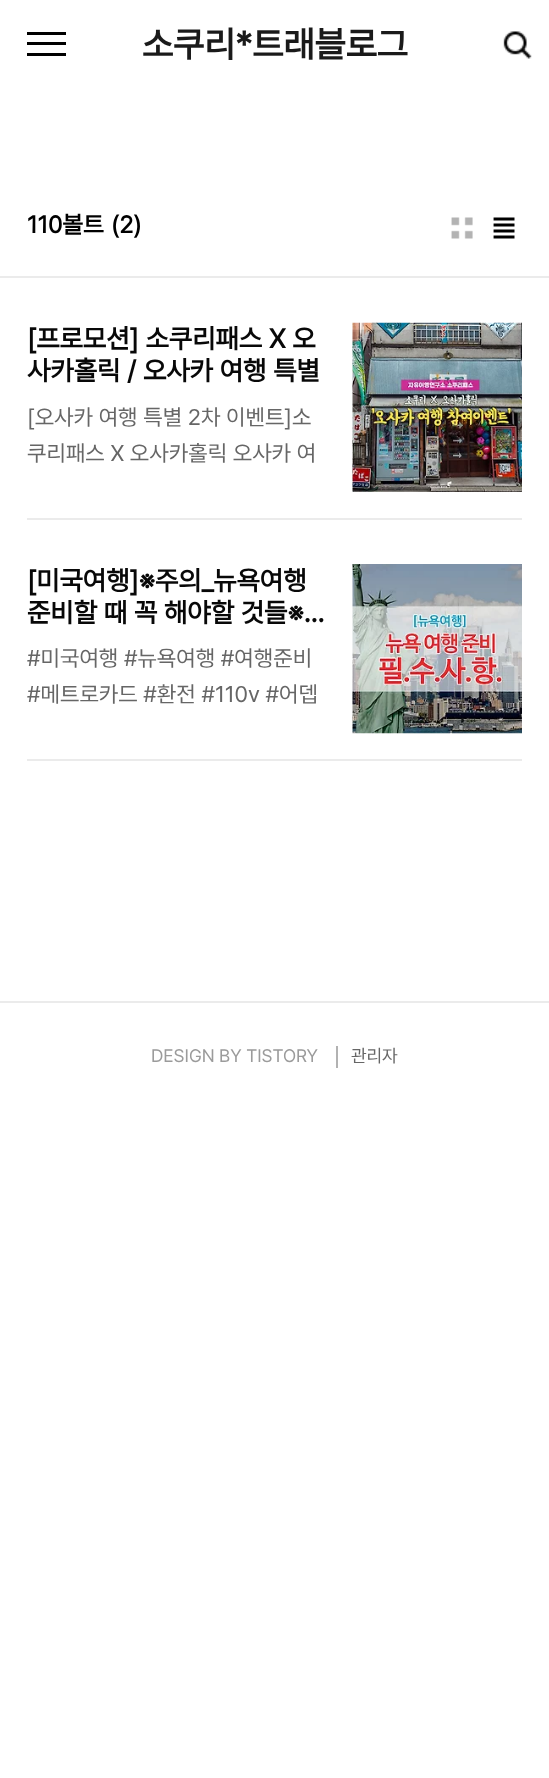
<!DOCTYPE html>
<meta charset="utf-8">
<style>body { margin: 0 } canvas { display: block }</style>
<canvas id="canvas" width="549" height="1778"></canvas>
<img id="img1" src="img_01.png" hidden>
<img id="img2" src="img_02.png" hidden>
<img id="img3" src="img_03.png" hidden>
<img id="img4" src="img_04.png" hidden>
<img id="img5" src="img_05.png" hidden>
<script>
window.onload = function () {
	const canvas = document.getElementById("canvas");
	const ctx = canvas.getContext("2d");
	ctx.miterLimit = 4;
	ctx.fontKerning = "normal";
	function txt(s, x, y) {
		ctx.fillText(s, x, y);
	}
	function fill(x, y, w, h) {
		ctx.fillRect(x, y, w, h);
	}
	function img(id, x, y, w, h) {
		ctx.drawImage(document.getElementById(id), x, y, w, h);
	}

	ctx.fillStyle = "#FFFFFF";
	fill(0, 0, 549, 1778);
	ctx.fillStyle = "#000000";
	fill(27, 32, 39, 3);
	fill(27, 42, 39, 3);
	fill(27, 53, 39, 3);
	img("img1", 503, 31, 29, 28);
	ctx.fillStyle = "#EBEBEB";
	fill(0, 276, 549, 2);
	img("img2", 451, 217, 22, 22);
	img("img3", 493, 217, 22, 22);
	fill(27, 518, 495, 2);
	img("img4", 352, 322, 170, 170);
	fill(27, 759, 495, 2);
	img("img5", 352, 564, 170, 170);
	fill(0, 1001, 549, 2);
	ctx.fillStyle = "#B2B2B2";
	fill(336, 1046, 2, 22);
	ctx.font = "bold 36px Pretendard";
	ctx.fillStyle = "#1A1A1A";
	txt("소쿠리*트래블로그", 142, 57);
	ctx.font = "bold 24px Pretendard";
	ctx.fillStyle = "#000000";
	txt("110볼트", 27, 233);
	txt("(2)", 111, 233);
	ctx.font = "bold 27px Pretendard";
	ctx.fillStyle = "#080808";
	txt("[프로모션] 소쿠리패스 X 오", 27, 348);
	txt("사카홀릭 / 오사카 여행 특별", 27, 380);
	ctx.font = "22.5px Pretendard";
	ctx.fillStyle = "#666666";
	txt("[오사카 여행 특별 2차 이벤트]소", 27, 425);
	txt("쿠리패스 X 오사카홀릭 오사카 여", 27, 461);
	ctx.font = "bold 27px Pretendard";
	ctx.fillStyle = "#080808";
	txt("[미국여행]※주의_뉴욕여행", 27, 590);
	txt("준비할 때 꼭 해야할 것들※…", 27, 622);
	ctx.font = "22.5px Pretendard";
	ctx.fillStyle = "#666666";
	txt("#미국여행 #뉴욕여행 #여행준비", 27, 666);
	txt("#메트로카드 #환전 #110v #어뎁", 27, 702);
	ctx.font = "18px Pretendard";
	ctx.fillStyle = "#9B9B9B";
	txt("DESIGN BY TISTORY", 151, 1062);
	ctx.fillStyle = "#666666";
	txt("관리자", 351, 1062);
};
</script>
